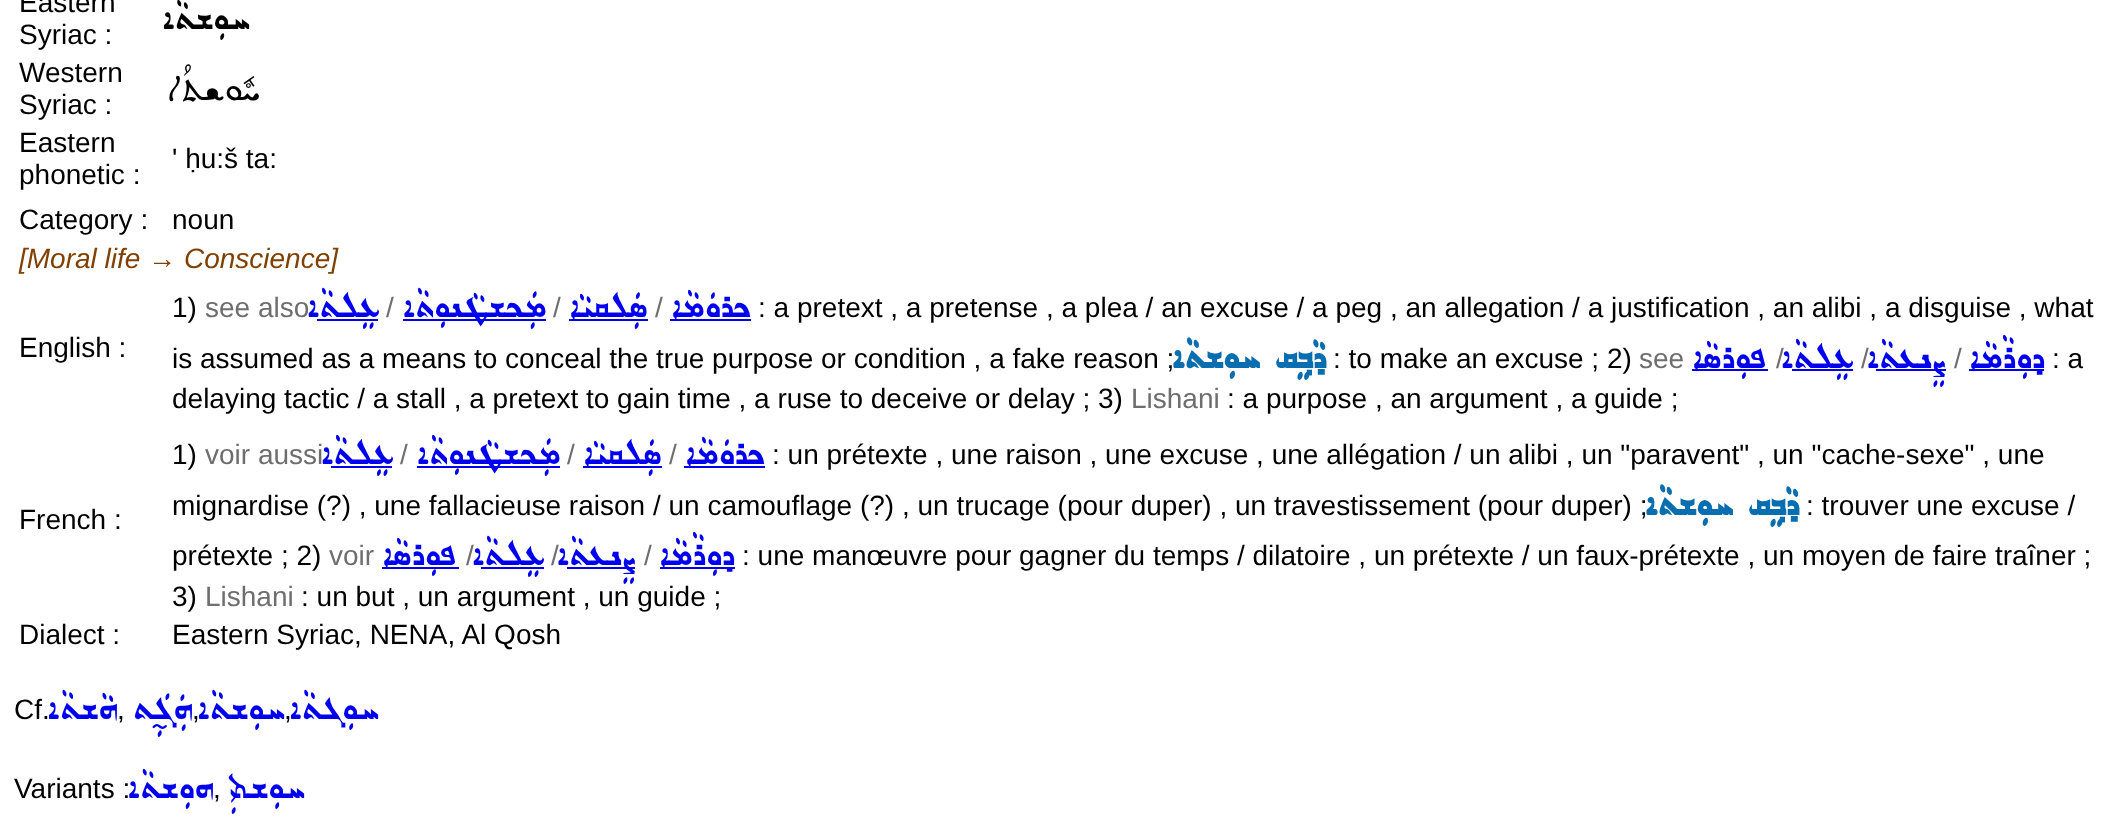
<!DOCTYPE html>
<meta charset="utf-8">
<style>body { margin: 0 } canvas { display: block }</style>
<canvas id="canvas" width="2127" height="825"></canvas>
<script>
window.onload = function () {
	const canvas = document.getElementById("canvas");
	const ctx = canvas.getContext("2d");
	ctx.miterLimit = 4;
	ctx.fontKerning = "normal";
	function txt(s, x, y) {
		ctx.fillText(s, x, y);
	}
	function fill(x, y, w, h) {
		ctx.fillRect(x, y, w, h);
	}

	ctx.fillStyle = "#FFFFFF";
	fill(0, 0, 2127, 825);
	ctx.fillStyle = "#0000EE";
	fill(317, 319, 61, 2);
	fill(403, 319, 143, 2);
	fill(569, 319, 79, 2);
	fill(670, 319, 81, 2);
	fill(1692, 369, 76, 2);
	fill(1792, 369, 61, 2);
	fill(1876, 369, 70, 2);
	fill(1969, 369, 75, 2);
	fill(331, 466, 61, 2);
	fill(417, 466, 143, 2);
	fill(583, 466, 79, 2);
	fill(684, 466, 81, 2);
	fill(382, 567, 77, 2);
	fill(481, 567, 63, 2);
	fill(567, 567, 68, 2);
	fill(660, 567, 75, 2);
	ctx.font = "28px Liberation Sans";
	ctx.fillStyle = "#000000";
	txt("Eastern", 19, 12);
	txt("Syriac :", 19, 44);
	ctx.direction = "rtl";
	ctx.font = "45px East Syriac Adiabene";
	txt("ܚܘܼܫܬܵܐ", 249, 29);
	ctx.direction = "ltr";
	ctx.font = "28px Liberation Sans";
	txt("Western", 19, 82);
	txt("Syriac :", 19, 114);
	ctx.direction = "rtl";
	ctx.font = "48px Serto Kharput";
	txt("ܚܽܘܫܬܳܐ", 259, 100);
	ctx.direction = "ltr";
	ctx.font = "28px Liberation Sans";
	txt("Eastern", 19, 152);
	txt("phonetic :", 19, 184);
	txt("' ḥu:š ta:", 172, 168);
	txt("Category :", 19, 229);
	txt("noun", 172, 229);
	ctx.font = "italic 28px Liberation Sans";
	ctx.fillStyle = "#804000";
	txt("[Moral life → Conscience]", 19, 268);
	ctx.font = "28px Liberation Sans";
	ctx.fillStyle = "#000000";
	txt("English :", 19, 357);
	txt("1)", 172, 317);
	ctx.fillStyle = "#6E6E6E";
	txt("see also", 205, 317);
	ctx.direction = "rtl";
	ctx.font = "45px East Syriac Adiabene";
	ctx.fillStyle = "#0000EE";
	txt("ܥܸܠܬܵܐ", 379, 317);
	ctx.direction = "ltr";
	ctx.font = "28px Liberation Sans";
	ctx.fillStyle = "#6E6E6E";
	txt("/", 386, 317);
	ctx.direction = "rtl";
	ctx.font = "45px East Syriac Adiabene";
	ctx.fillStyle = "#0000EE";
	txt("ܡܲܟܫܛܵܢܘܼܬܵܐ", 546, 317);
	ctx.direction = "ltr";
	ctx.font = "28px Liberation Sans";
	ctx.fillStyle = "#6E6E6E";
	txt("/", 553, 317);
	ctx.direction = "rtl";
	ctx.font = "45px East Syriac Adiabene";
	ctx.fillStyle = "#0000EE";
	txt("ܣܲܠܩܝܵܐ", 647, 317);
	ctx.direction = "ltr";
	ctx.font = "28px Liberation Sans";
	ctx.fillStyle = "#6E6E6E";
	txt("/", 655, 317);
	ctx.direction = "rtl";
	ctx.font = "45px East Syriac Adiabene";
	ctx.fillStyle = "#0000EE";
	txt("ܟܪܘܿܡܵܐ", 751, 317);
	ctx.direction = "ltr";
	ctx.font = "28px Liberation Sans";
	ctx.fillStyle = "#000000";
	txt(": a pretext , a pretense , a plea / an excuse / a peg , an allegation / a justification , an alibi , a disguise , what", 758, 317);
	txt("is assumed as a means to conceal the true purpose or condition , a fake reason ;", 172, 368);
	ctx.direction = "rtl";
	ctx.font = "bold 45px East Syriac Adiabene";
	ctx.fillStyle = "#086EB0";
	txt("ܕܵܒ݂ܸܩ ܚܘܼܫܬܵܐ", 1325, 368);
	ctx.direction = "ltr";
	ctx.font = "28px Liberation Sans";
	ctx.fillStyle = "#000000";
	txt(": to make an excuse ; 2)", 1333, 368);
	ctx.fillStyle = "#6E6E6E";
	txt("see", 1639, 368);
	ctx.direction = "rtl";
	ctx.font = "45px East Syriac Adiabene";
	ctx.fillStyle = "#0000EE";
	txt("ܦܘܼܪܣܵܐ", 1768, 368);
	ctx.direction = "ltr";
	ctx.font = "28px Liberation Sans";
	ctx.fillStyle = "#6E6E6E";
	txt("/", 1776, 368);
	ctx.direction = "rtl";
	ctx.font = "45px East Syriac Adiabene";
	ctx.fillStyle = "#0000EE";
	txt("ܥܸܠܬܵܐ", 1853, 368);
	ctx.direction = "ltr";
	ctx.font = "28px Liberation Sans";
	ctx.fillStyle = "#6E6E6E";
	txt("/", 1861, 368);
	ctx.direction = "rtl";
	ctx.font = "45px East Syriac Adiabene";
	ctx.fillStyle = "#0000EE";
	txt("ܨܸܢܥܬܵܐ", 1946, 368);
	ctx.direction = "ltr";
	ctx.font = "28px Liberation Sans";
	ctx.fillStyle = "#6E6E6E";
	txt("/", 1954, 368);
	ctx.direction = "rtl";
	ctx.font = "45px East Syriac Adiabene";
	ctx.fillStyle = "#0000EE";
	txt("ܕܘܼܪܵܡܵܐ", 2044, 368);
	ctx.direction = "ltr";
	ctx.font = "28px Liberation Sans";
	ctx.fillStyle = "#000000";
	txt(": a", 2052, 368);
	txt("delaying tactic / a stall , a pretext to gain time , a ruse to deceive or delay ; 3)", 172, 408);
	ctx.fillStyle = "#6E6E6E";
	txt("Lishani", 1131, 408);
	ctx.fillStyle = "#000000";
	txt(": a purpose , an argument , a guide ;", 1227, 408);
	txt("French :", 19, 529);
	txt("1)", 172, 464);
	ctx.fillStyle = "#6E6E6E";
	txt("voir aussi", 205, 464);
	ctx.direction = "rtl";
	ctx.font = "45px East Syriac Adiabene";
	ctx.fillStyle = "#0000EE";
	txt("ܥܸܠܬܵܐ", 393, 464);
	ctx.direction = "ltr";
	ctx.font = "28px Liberation Sans";
	ctx.fillStyle = "#6E6E6E";
	txt("/", 400, 464);
	ctx.direction = "rtl";
	ctx.font = "45px East Syriac Adiabene";
	ctx.fillStyle = "#0000EE";
	txt("ܡܲܟܫܛܵܢܘܼܬܵܐ", 560, 464);
	ctx.direction = "ltr";
	ctx.font = "28px Liberation Sans";
	ctx.fillStyle = "#6E6E6E";
	txt("/", 567, 464);
	ctx.direction = "rtl";
	ctx.font = "45px East Syriac Adiabene";
	ctx.fillStyle = "#0000EE";
	txt("ܣܲܠܩܝܵܐ", 661, 464);
	ctx.direction = "ltr";
	ctx.font = "28px Liberation Sans";
	ctx.fillStyle = "#6E6E6E";
	txt("/", 669, 464);
	ctx.direction = "rtl";
	ctx.font = "45px East Syriac Adiabene";
	ctx.fillStyle = "#0000EE";
	txt("ܟܪܘܿܡܵܐ", 765, 464);
	ctx.direction = "ltr";
	ctx.font = "28px Liberation Sans";
	ctx.fillStyle = "#000000";
	txt(": un prétexte , une raison , une excuse , une allégation / un alibi , un \"paravent\" , un \"cache-sexe\" , une", 772, 464);
	txt("mignardise (?) , une fallacieuse raison / un camouflage (?) , un trucage (pour duper) , un travestissement (pour duper) ;", 172, 515);
	ctx.direction = "rtl";
	ctx.font = "bold 45px East Syriac Adiabene";
	ctx.fillStyle = "#086EB0";
	txt("ܕܵܒ݂ܸܩ ܚܘܼܫܬܵܐ", 1798, 515);
	ctx.direction = "ltr";
	ctx.font = "28px Liberation Sans";
	ctx.fillStyle = "#000000";
	txt(": trouver une excuse /", 1806, 515);
	txt("prétexte ; 2)", 172, 565);
	ctx.fillStyle = "#6E6E6E";
	txt("voir", 329, 565);
	ctx.direction = "rtl";
	ctx.font = "45px East Syriac Adiabene";
	ctx.fillStyle = "#0000EE";
	txt("ܦܘܼܪܣܵܐ", 458, 565);
	ctx.direction = "ltr";
	ctx.font = "28px Liberation Sans";
	ctx.fillStyle = "#6E6E6E";
	txt("/", 466, 565);
	ctx.direction = "rtl";
	ctx.font = "45px East Syriac Adiabene";
	ctx.fillStyle = "#0000EE";
	txt("ܥܸܠܬܵܐ", 544, 565);
	ctx.direction = "ltr";
	ctx.font = "28px Liberation Sans";
	ctx.fillStyle = "#6E6E6E";
	txt("/", 551, 565);
	ctx.direction = "rtl";
	ctx.font = "45px East Syriac Adiabene";
	ctx.fillStyle = "#0000EE";
	txt("ܨܸܢܥܬܵܐ", 636, 565);
	ctx.direction = "ltr";
	ctx.font = "28px Liberation Sans";
	ctx.fillStyle = "#6E6E6E";
	txt("/", 644, 565);
	ctx.direction = "rtl";
	ctx.font = "45px East Syriac Adiabene";
	ctx.fillStyle = "#0000EE";
	txt("ܕܘܼܪܵܡܵܐ", 734, 565);
	ctx.direction = "ltr";
	ctx.font = "28px Liberation Sans";
	ctx.fillStyle = "#000000";
	txt(": une manœuvre pour gagner du temps / dilatoire , un prétexte / un faux-prétexte , un moyen de faire traîner ;", 742, 565);
	txt("3)", 172, 606);
	ctx.fillStyle = "#6E6E6E";
	txt("Lishani", 205, 606);
	ctx.fillStyle = "#000000";
	txt(": un but , un argument , un guide ;", 301, 606);
	txt("Dialect :", 19, 644);
	txt("Eastern Syriac, NENA, Al Qosh", 172, 644);
	txt("Cf.", 14, 719);
	ctx.direction = "rtl";
	ctx.font = "45px East Syriac Adiabene";
	ctx.fillStyle = "#0000EE";
	txt("ܗܵܫܬܵܐ", 117, 719);
	ctx.direction = "ltr";
	ctx.font = "28px Liberation Sans";
	ctx.fillStyle = "#000000";
	txt(",", 117, 719);
	ctx.direction = "rtl";
	ctx.font = "45px East Syriac Adiabene";
	ctx.fillStyle = "#0000EE";
	txt("ܗܲܓ̰ܲܬ", 192, 719);
	ctx.direction = "ltr";
	ctx.font = "28px Liberation Sans";
	ctx.fillStyle = "#000000";
	txt(",", 192, 719);
	ctx.direction = "rtl";
	ctx.font = "45px East Syriac Adiabene";
	ctx.fillStyle = "#0000EE";
	txt("ܚܘܼܫܬܵܐ", 284, 719);
	ctx.direction = "ltr";
	ctx.font = "28px Liberation Sans";
	ctx.fillStyle = "#000000";
	txt(",", 284, 719);
	ctx.direction = "rtl";
	ctx.font = "45px East Syriac Adiabene";
	ctx.fillStyle = "#0000EE";
	txt("ܚܘܼܓܬܵܐ", 378, 719);
	ctx.direction = "ltr";
	ctx.font = "28px Liberation Sans";
	ctx.fillStyle = "#000000";
	txt("Variants :", 14, 798);
	ctx.direction = "rtl";
	ctx.font = "45px East Syriac Adiabene";
	ctx.fillStyle = "#0000EE";
	txt("ܗܘܼܫܬܵܐ", 213, 798);
	ctx.direction = "ltr";
	ctx.font = "28px Liberation Sans";
	ctx.fillStyle = "#000000";
	txt(",", 213, 798);
	ctx.direction = "rtl";
	ctx.font = "45px East Syriac Adiabene";
	ctx.fillStyle = "#0000EE";
	txt("ܚܘܼܫܬܝܼ", 304, 798);
};
</script>
